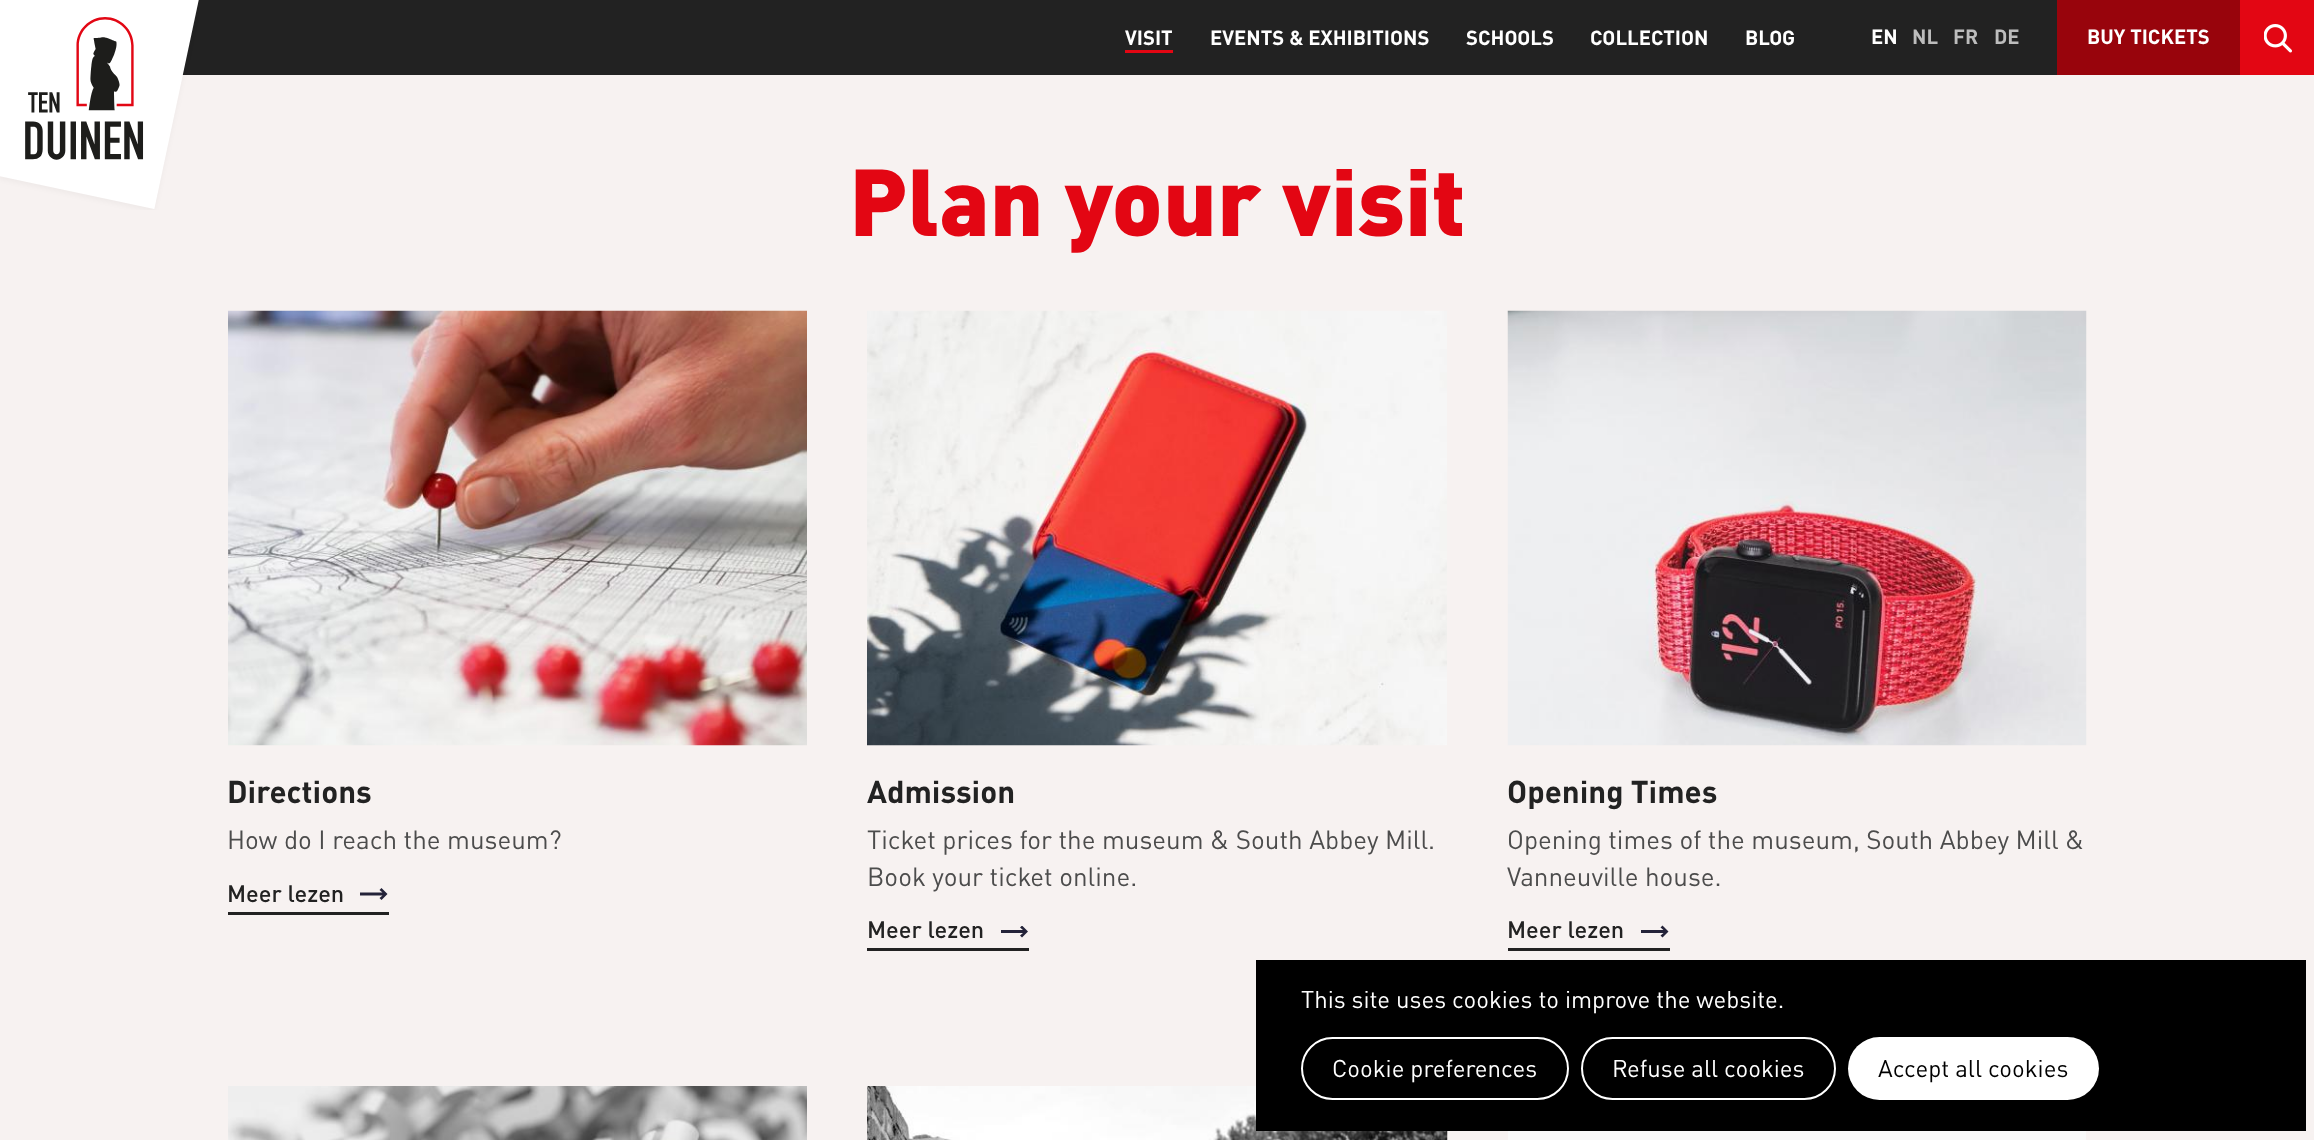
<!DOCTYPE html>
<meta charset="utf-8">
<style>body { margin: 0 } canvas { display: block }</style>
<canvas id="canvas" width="2314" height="1140"></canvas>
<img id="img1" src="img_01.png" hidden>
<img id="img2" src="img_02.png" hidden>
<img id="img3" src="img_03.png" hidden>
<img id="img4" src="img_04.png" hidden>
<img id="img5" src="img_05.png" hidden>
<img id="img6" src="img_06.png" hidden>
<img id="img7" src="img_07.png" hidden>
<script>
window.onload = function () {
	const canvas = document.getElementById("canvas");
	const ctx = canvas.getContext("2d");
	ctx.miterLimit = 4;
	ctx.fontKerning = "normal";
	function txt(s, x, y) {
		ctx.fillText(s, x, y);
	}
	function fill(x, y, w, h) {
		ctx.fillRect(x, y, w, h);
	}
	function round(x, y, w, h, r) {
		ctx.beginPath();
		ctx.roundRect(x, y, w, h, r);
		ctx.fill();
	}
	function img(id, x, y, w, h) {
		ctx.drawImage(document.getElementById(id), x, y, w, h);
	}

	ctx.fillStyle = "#F7F2F1";
	fill(0, 0, 2314, 1140);
	ctx.fillStyle = "#222222";
	fill(182, 0, 1875, 75);
	img("img1", 0, 0, 199, 210);
	ctx.fillStyle = "#E30613";
	fill(1125, 50, 48, 3);
	ctx.fillStyle = "#98040C";
	fill(2057, 0, 183, 75);
	ctx.fillStyle = "#E30613";
	fill(2240, 0, 74, 75);
	img("img2", 2264, 24, 28, 29);
	img("img3", 228, 310, 579, 436);
	ctx.fillStyle = "#242339";
	ctx.beginPath();
	ctx.moveTo(381.5, 888);
	ctx.lineTo(387.5, 894);
	ctx.lineTo(381.5, 900);
	ctx.lineTo(379.5, 898);
	ctx.lineTo(382.5, 895.5);
	ctx.lineTo(360, 895.5);
	ctx.lineTo(360, 892.5);
	ctx.lineTo(382.5, 892.5);
	ctx.lineTo(379.5, 890);
	ctx.closePath();
	ctx.fill();
	ctx.fillStyle = "#222222";
	fill(228, 912, 161, 3);
	img("img4", 867, 310, 580, 436);
	ctx.save();
	ctx.beginPath();
	ctx.rect(1001, 926, 28, 12);
	ctx.clip();
	ctx.fillStyle = "#242339";
	ctx.beginPath();
	ctx.moveTo(1022, 925.5);
	ctx.lineTo(1028, 931.5);
	ctx.lineTo(1022, 937.5);
	ctx.lineTo(1020, 935.5);
	ctx.lineTo(1023, 933);
	ctx.lineTo(1000.5, 933);
	ctx.lineTo(1000.5, 930);
	ctx.lineTo(1023, 930);
	ctx.lineTo(1020, 927.5);
	ctx.closePath();
	ctx.fill();
	ctx.restore();
	fill(867, 948, 162, 3);
	img("img5", 1507, 310, 580, 436);
	ctx.fillStyle = "#242339";
	ctx.beginPath();
	ctx.moveTo(1662.5, 925.5);
	ctx.lineTo(1668.5, 931.5);
	ctx.lineTo(1662.5, 937.5);
	ctx.lineTo(1660.5, 935.5);
	ctx.lineTo(1663.5, 933);
	ctx.lineTo(1641, 933);
	ctx.lineTo(1641, 930);
	ctx.lineTo(1663.5, 930);
	ctx.lineTo(1660.5, 927.5);
	ctx.closePath();
	ctx.fill();
	ctx.fillStyle = "#222222";
	fill(1508, 948, 162, 3);
	img("img6", 228, 1086, 579, 54);
	img("img7", 867, 1086, 581, 54);
	ctx.fillStyle = "#F9F9F9";
	fill(1508, 1131, 578, 9);
	ctx.fillStyle = "#000000";
	fill(1256, 960, 1050, 171);
	ctx.beginPath();
	ctx.roundRect(1302, 1038, 266, 61, 30.5);
	ctx.strokeStyle = "#FFFFFF";
	ctx.lineWidth = 2;
	ctx.stroke();
	ctx.beginPath();
	ctx.roundRect(1582, 1038, 253, 61, 30.5);
	ctx.stroke();
	ctx.fillStyle = "#FFFFFF";
	round(1848, 1037, 251, 63, 31.5);
	ctx.font = "bold 20.25px DIN";
	txt("VISIT", 1125, 45);
	txt("EVENTS & EXHIBITIONS", 1210, 45);
	txt("SCHOOLS", 1466, 45);
	txt("COLLECTION", 1590, 45);
	txt("BLOG", 1745, 45);
	txt("EN", 1871, 44);
	ctx.fillStyle = "#BDBDBD";
	txt("NL", 1912, 44);
	txt("FR", 1953, 44);
	txt("DE", 1994, 44);
	ctx.fillStyle = "#FFFFFF";
	txt("BUY TICKETS", 2087, 44);
	ctx.font = "900 93.5px DIN";
	ctx.fillStyle = "#E30613";
	txt("Plan your visit", 849, 236);
	ctx.font = "bold 31.25px DIN";
	ctx.fillStyle = "#222222";
	txt("Directions", 227, 803);
	ctx.font = "26px DIN";
	ctx.fillStyle = "#4C4C4C";
	txt("How do I reach the museum?", 227, 849);
	ctx.font = "500 23.5px DIN";
	ctx.fillStyle = "#222222";
	txt("Meer lezen", 227, 902);
	ctx.font = "bold 31.25px DIN";
	txt("Admission", 867, 803);
	ctx.font = "26px DIN";
	ctx.fillStyle = "#4C4C4C";
	txt("Ticket prices for the museum & South Abbey Mill.", 867, 849);
	txt("Book your ticket online.", 867, 886);
	ctx.font = "500 23.5px DIN";
	ctx.fillStyle = "#222222";
	txt("Meer lezen", 867, 938);
	ctx.font = "bold 31.25px DIN";
	txt("Opening Times", 1507, 803);
	ctx.font = "26px DIN";
	ctx.fillStyle = "#4C4C4C";
	txt("Opening times of the museum, South Abbey Mill &", 1507, 849);
	txt("Vanneuville house.", 1507, 886);
	ctx.font = "500 23.5px DIN";
	ctx.fillStyle = "#222222";
	txt("Meer lezen", 1507, 938);
	ctx.font = "24px DIN";
	ctx.fillStyle = "#FFFFFF";
	txt("This site uses cookies to improve the website.", 1301, 1008);
	txt("Cookie preferences", 1332, 1077);
	txt("Refuse all cookies", 1612, 1077);
	ctx.fillStyle = "#000000";
	txt("Accept all cookies", 1878, 1077);
};
</script>
